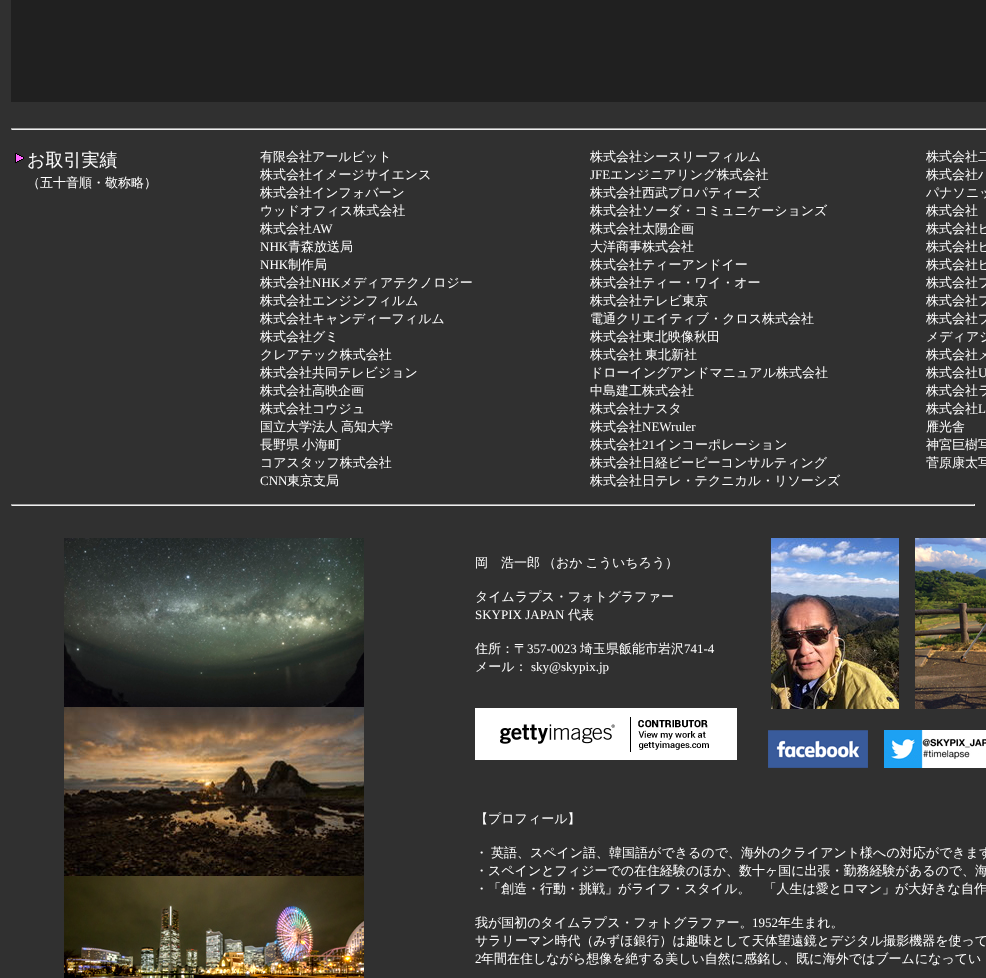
<!DOCTYPE html>
<meta charset="utf-8">
<style>body { margin: 0 } canvas { display: block }</style>
<canvas id="canvas" width="986" height="978"></canvas>
<img id="img1" src="img_01.png" hidden>
<img id="img2" src="img_02.png" hidden>
<img id="img3" src="img_03.png" hidden>
<img id="img4" src="img_04.png" hidden>
<img id="img5" src="img_05.png" hidden>
<img id="img6" src="img_06.png" hidden>
<img id="img7" src="img_07.png" hidden>
<img id="img8" src="img_08.png" hidden>
<img id="img9" src="img_09.png" hidden>
<script>
window.onload = function () {
	const canvas = document.getElementById("canvas");
	const ctx = canvas.getContext("2d");
	ctx.miterLimit = 4;
	ctx.fontKerning = "normal";
	function txt(s, x, y) {
		ctx.fillText(s, x, y);
	}
	function fill(x, y, w, h) {
		ctx.fillRect(x, y, w, h);
	}
	function img(id, x, y, w, h) {
		ctx.drawImage(document.getElementById(id), x, y, w, h);
	}

	ctx.fillStyle = "#303030";
	fill(0, 0, 986, 978);
	ctx.fillStyle = "#202020";
	fill(11, 0, 975, 102);
	ctx.fillStyle = "#9F9F9F";
	fill(11, 128, 975, 1);
	ctx.fillStyle = "#EEEEEE";
	fill(11, 129, 975, 1);
	ctx.fillStyle = "#9F9F9F";
	fill(11, 128, 1, 2);
	img("img1", 15, 153, 9, 10);
	fill(11, 504, 964, 1);
	ctx.fillStyle = "#EEEEEE";
	fill(974, 504, 1, 2);
	fill(11, 505, 964, 1);
	ctx.fillStyle = "#9F9F9F";
	fill(11, 504, 1, 2);
	img("img2", 64, 538, 300, 169);
	img("img3", 64, 707, 300, 169);
	img("img4", 64, 876, 300, 102);
	img("img5", 475, 708, 262, 52);
	img("img6", 771, 538, 128, 171);
	img("img7", 915, 538, 71, 171);
	img("img8", 768, 730, 100, 38);
	img("img9", 884, 730, 102, 38);
	ctx.font = "500 18px WenQuanYi Zen Hei";
	ctx.fillStyle = "#FFFFFF";
	txt("お取引実績", 27, 166);
	ctx.font = "500 13px WenQuanYi Zen Hei";
	txt("（五十音順・敬称略）", 27, 187);
	txt("有限会社アールビット", 260, 161);
	txt("株式会社イメージサイエンス", 260, 179);
	txt("株式会社インフォバーン", 260, 197);
	txt("ウッドオフィス株式会社", 260, 215);
	txt("株式会社", 260, 233);
	ctx.font = "13px Liberation Serif";
	txt("AW", 312, 233);
	txt("NHK", 260, 251);
	ctx.font = "500 13px WenQuanYi Zen Hei";
	txt("青森放送局", 288, 251);
	ctx.font = "13px Liberation Serif";
	txt("NHK", 260, 269);
	ctx.font = "500 13px WenQuanYi Zen Hei";
	txt("制作局", 288, 269);
	txt("株式会社", 260, 287);
	ctx.font = "13px Liberation Serif";
	txt("NHK", 312, 287);
	ctx.font = "500 13px WenQuanYi Zen Hei";
	txt("メディアテクノロジー", 340, 287);
	txt("株式会社エンジンフィルム", 260, 305);
	txt("株式会社キャンディーフィルム", 260, 323);
	txt("株式会社グミ", 260, 341);
	txt("クレアテック株式会社", 260, 359);
	txt("株式会社共同テレビジョン", 260, 377);
	txt("株式会社高映企画", 260, 395);
	txt("株式会社コウジュ", 260, 413);
	ctx.wordSpacing = "-1px";
	txt("国立大学法人 高知大学", 260, 431);
	txt("長野県 小海町", 260, 449);
	ctx.wordSpacing = "0px";
	txt("コアスタッフ株式会社", 260, 467);
	ctx.font = "13px Liberation Serif";
	txt("CNN", 260, 485);
	ctx.font = "500 13px WenQuanYi Zen Hei";
	txt("東京支局", 287, 485);
	txt("株式会社シースリーフィルム", 590, 161);
	ctx.font = "13px Liberation Serif";
	txt("JFE", 590, 179);
	ctx.font = "500 13px WenQuanYi Zen Hei";
	txt("エンジニアリング株式会社", 610, 179);
	txt("株式会社西武プロパティーズ", 590, 197);
	txt("株式会社ソーダ・コミュニケーションズ", 590, 215);
	txt("株式会社太陽企画", 590, 233);
	txt("大洋商事株式会社", 590, 251);
	txt("株式会社ティーアンドイー", 590, 269);
	txt("株式会社ティー・ワイ・オー", 590, 287);
	txt("株式会社テレビ東京", 590, 305);
	txt("電通クリエイティブ・クロス株式会社", 590, 323);
	txt("株式会社東北映像秋田", 590, 341);
	txt("株式会社", 590, 359);
	txt("東北新社", 645, 359);
	txt("ドローイングアンドマニュアル株式会社", 590, 377);
	txt("中島建工株式会社", 590, 395);
	txt("株式会社ナスタ", 590, 413);
	txt("株式会社", 590, 431);
	ctx.font = "13px Liberation Serif";
	txt("NEWruler", 642, 431);
	ctx.font = "500 13px WenQuanYi Zen Hei";
	txt("株式会社", 590, 449);
	ctx.font = "13px Liberation Serif";
	txt("21", 642, 449);
	ctx.font = "500 13px WenQuanYi Zen Hei";
	txt("インコーポレーション", 655, 449);
	txt("株式会社日経ビーピーコンサルティング", 590, 467);
	txt("株式会社日テレ・テクニカル・リソーシズ", 590, 485);
	txt("株式会社二", 926, 161);
	txt("株式会社ハ", 926, 179);
	txt("パナソニッ", 926, 197);
	txt("株式会社", 926, 215);
	txt("株式会社ピ", 926, 233);
	txt("株式会社ピ", 926, 251);
	txt("株式会社ピ", 926, 269);
	txt("株式会社フ", 926, 287);
	txt("株式会社フ", 926, 305);
	txt("株式会社プ", 926, 323);
	txt("メディアジ", 926, 341);
	txt("株式会社メ", 926, 359);
	txt("株式会社", 926, 377);
	ctx.font = "13px Liberation Serif";
	txt("U", 978, 377);
	ctx.font = "500 13px WenQuanYi Zen Hei";
	txt("株式会社ラ", 926, 395);
	txt("株式会社", 926, 413);
	ctx.font = "13px Liberation Serif";
	txt("L", 978, 413);
	ctx.font = "500 13px WenQuanYi Zen Hei";
	txt("雁光舎", 926, 431);
	txt("神宮巨樹写", 926, 449);
	txt("菅原康太写", 926, 467);
	ctx.wordSpacing = "-1px";
	txt("岡　浩一郎 （おか こういちろう）", 475, 567);
	ctx.wordSpacing = "0px";
	txt("タイムラプス・フォトグラファー", 475, 601);
	ctx.font = "13px Liberation Serif";
	txt("SKYPIX JAPAN", 475, 619);
	ctx.font = "500 13px WenQuanYi Zen Hei";
	txt("代表", 568, 619);
	txt("住所：〒", 475, 653);
	ctx.font = "13px Liberation Serif";
	txt("357-0023", 527, 653);
	ctx.font = "500 13px WenQuanYi Zen Hei";
	txt("埼玉県飯能市岩沢", 580, 653);
	ctx.font = "13px Liberation Serif";
	txt("741-4", 684, 653);
	ctx.font = "500 13px WenQuanYi Zen Hei";
	txt("メール：", 475, 671);
	ctx.font = "13px Liberation Serif";
	txt("sky@skypix.jp", 531, 671);
	ctx.font = "500 13px WenQuanYi Zen Hei";
	txt("【プロフィール】", 475, 823);
	ctx.wordSpacing = "-1px";
	txt("・ 英語、スペイン語、韓国語ができるので、海外のクライアント様への対応ができます", 475, 857);
	ctx.wordSpacing = "0px";
	txt("・スペインとフィジーでの在住経験のほか、数十ヶ国に出張・勤務経験があるので、海", 475, 875);
	txt("・「創造・行動・挑戦」がライフ・スタイル。　「人生は愛とロマン」が大好きな自作", 475, 893);
	txt("我が国初のタイムラプス・フォトグラファー。", 475, 927);
	ctx.font = "13px Liberation Serif";
	txt("1952", 752, 927);
	ctx.font = "500 13px WenQuanYi Zen Hei";
	txt("年生まれ。", 778, 927);
	txt("サラリーマン時代（みずほ銀行）は趣味として天体望遠鏡とデジタル撮影機器を使って", 475, 945);
	ctx.font = "13px Liberation Serif";
	txt("2", 475, 963);
	ctx.font = "500 13px WenQuanYi Zen Hei";
	txt("年間在住しながら想像を絶する美しい自然に感銘し、既に海外ではブームになってい", 481, 963);
};
</script>
